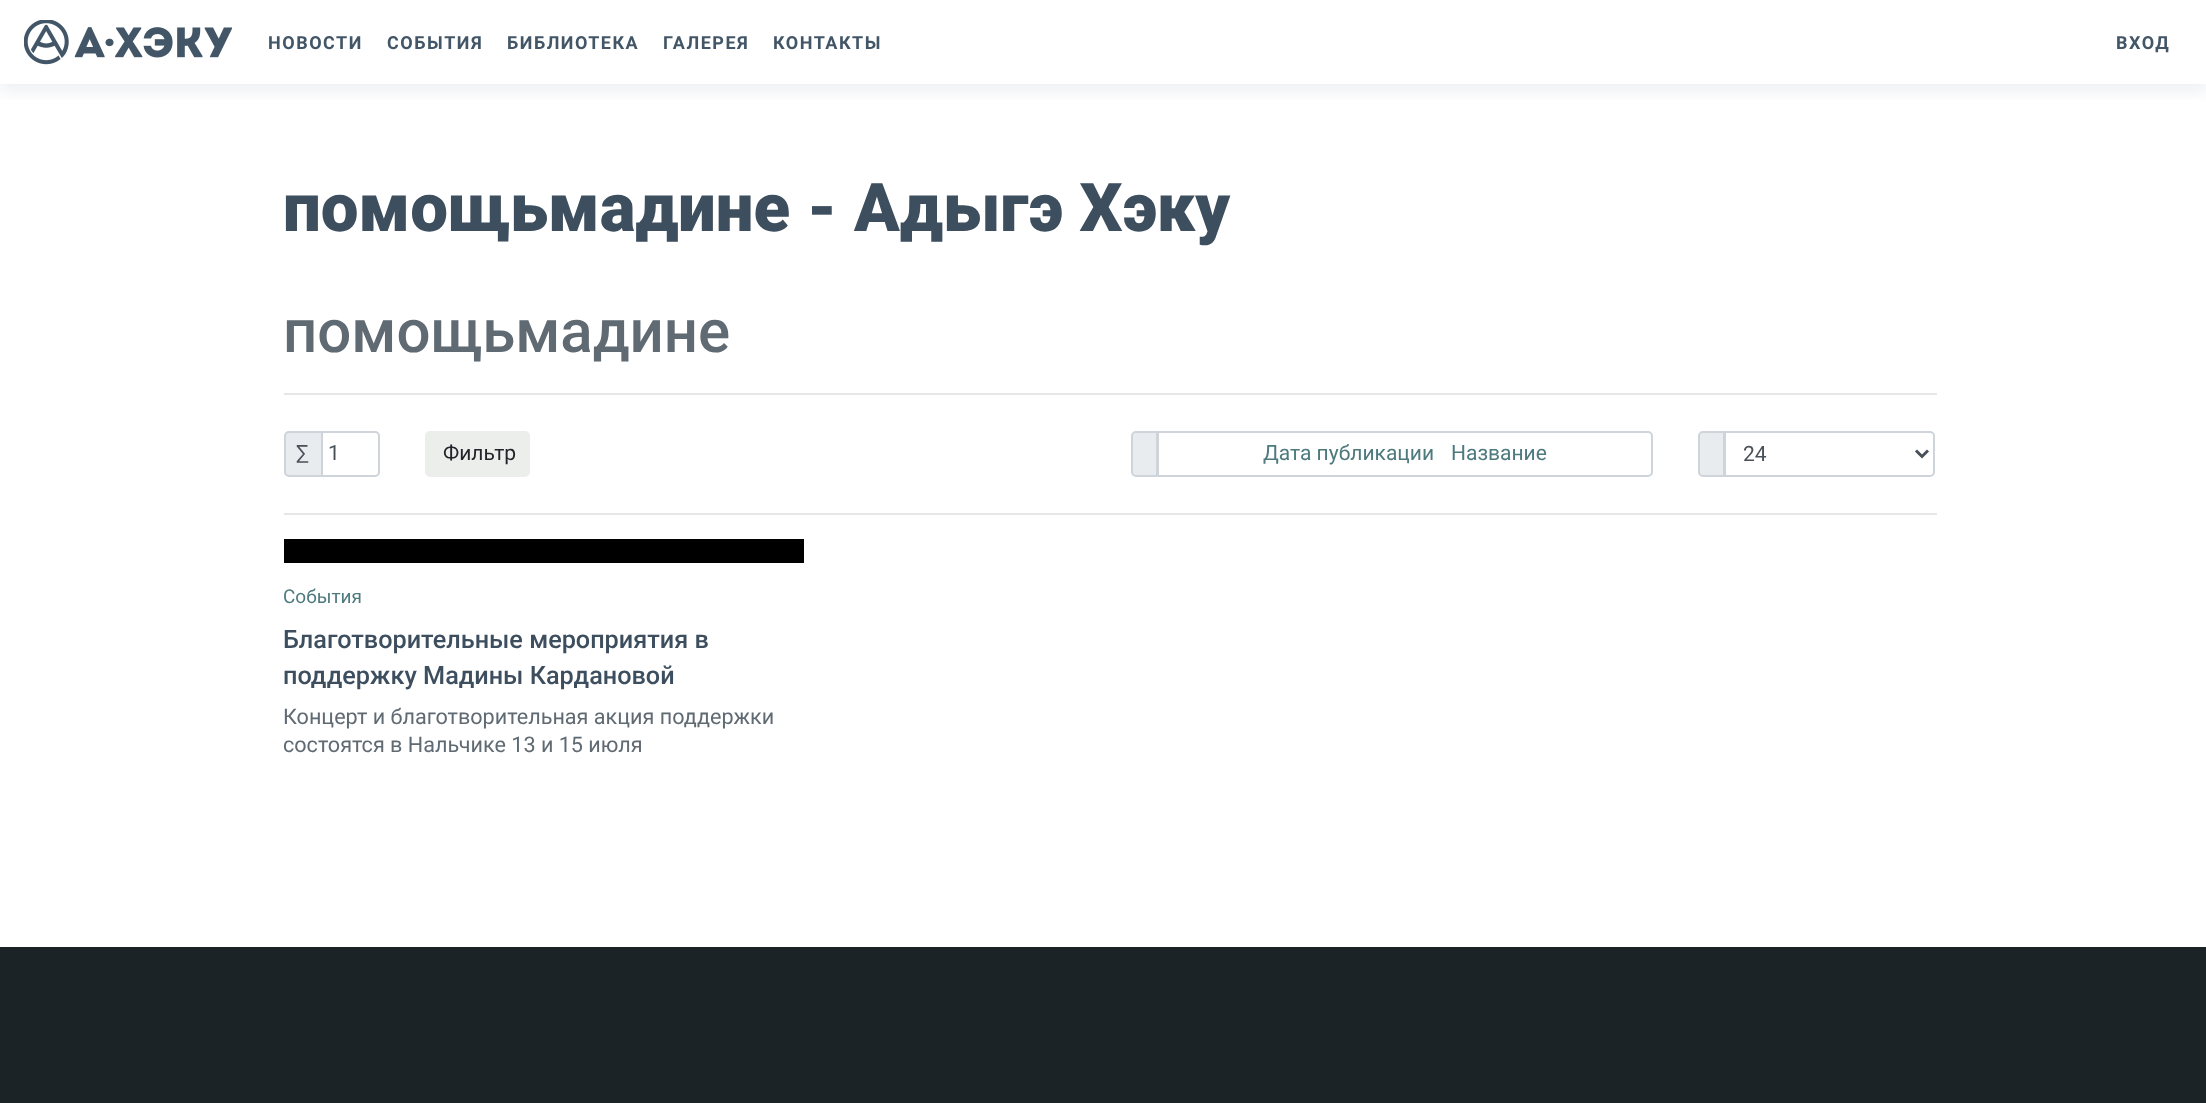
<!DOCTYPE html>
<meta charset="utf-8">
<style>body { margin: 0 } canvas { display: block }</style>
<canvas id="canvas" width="2206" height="1103"></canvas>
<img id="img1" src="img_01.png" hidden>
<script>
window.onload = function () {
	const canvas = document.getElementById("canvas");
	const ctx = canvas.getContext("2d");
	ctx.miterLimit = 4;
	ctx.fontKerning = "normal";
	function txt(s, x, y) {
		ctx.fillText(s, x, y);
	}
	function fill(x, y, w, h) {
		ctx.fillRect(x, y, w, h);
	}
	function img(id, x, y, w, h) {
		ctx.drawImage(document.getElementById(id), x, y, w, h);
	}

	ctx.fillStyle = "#1B2327";
	fill(0, 0, 2206, 1103);
	ctx.fillStyle = "#FFFFFF";
	fill(0, 0, 2206, 947);
	ctx.save();
	ctx.beginPath();
	ctx.rect(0, 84, 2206, 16);
	ctx.clip();
	ctx.fillStyle = "rgba(138, 155, 165, 0.15)";
	ctx.filter = "blur(7.5px)";
	ctx.beginPath();
	ctx.rect(0, 8, 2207, 84);
	ctx.fill();
	ctx.filter = "none";
	ctx.restore();
	img("img1", 24, 20, 209, 45);
	ctx.fillStyle = "#E6E6E6";
	fill(284, 393, 1653, 2);
	ctx.fillStyle = "#E9ECEF";
	ctx.beginPath();
	ctx.roundRect(285, 432, 37, 44, [4, 0, 0, 4]);
	ctx.fill();
	ctx.strokeStyle = "#CED4DA";
	ctx.lineWidth = 2;
	ctx.stroke();
	ctx.beginPath();
	ctx.roundRect(322, 432, 57, 44, [0, 4, 4, 0]);
	ctx.stroke();
	ctx.fillStyle = "#ECEEEC";
	ctx.beginPath();
	ctx.roundRect(426, 432, 103, 44, 4);
	ctx.fill();
	ctx.strokeStyle = "#ECEEEC";
	ctx.stroke();
	ctx.fillStyle = "#E9ECEF";
	ctx.beginPath();
	ctx.roundRect(1132, 432, 25, 44, [4, 0, 0, 4]);
	ctx.fill();
	ctx.strokeStyle = "#CED4DA";
	ctx.stroke();
	ctx.beginPath();
	ctx.roundRect(1158, 432, 494, 44, [0, 4, 4, 0]);
	ctx.stroke();
	ctx.beginPath();
	ctx.roundRect(1699, 432, 25, 44, [4, 0, 0, 4]);
	ctx.fill();
	ctx.stroke();
	ctx.beginPath();
	ctx.roundRect(1725, 432, 209, 44, [0, 4, 4, 0]);
	ctx.stroke();
	ctx.beginPath();
	ctx.moveTo(1916, 450.5);
	ctx.lineTo(1922, 456.5);
	ctx.lineTo(1928, 450.5);
	ctx.strokeStyle = "#495057";
	ctx.lineWidth = 3;
	ctx.stroke();
	ctx.fillStyle = "#E6E6E6";
	fill(284, 513, 1653, 2);
	ctx.fillStyle = "#000000";
	fill(284, 539, 520, 24);
	ctx.letterSpacing = "1.5px";
	ctx.font = "bold 18px Roboto";
	ctx.fillStyle = "#435667";
	txt("НОВОСТИ", 268, 49);
	txt("СОБЫТИЯ", 387, 49);
	txt("БИБЛИОТЕКА", 507, 49);
	txt("ГАЛЕРЕЯ", 663, 49);
	txt("КОНТАКТЫ", 773, 49);
	txt("ВХОД", 2116, 49);
	ctx.letterSpacing = "0px";
	ctx.font = "900 67.25px Roboto";
	ctx.fillStyle = "#3D4E5E";
	txt("помощьмадине - Адыгэ Хэку", 283, 231);
	ctx.font = "500 60px Roboto";
	ctx.fillStyle = "#606A73";
	txt("помощьмадине", 283, 352);
	ctx.font = "21px Roboto";
	ctx.fillStyle = "#495057";
	txt("∑", 296, 460);
	txt("1", 328, 460);
	ctx.fillStyle = "#212529";
	txt("Фильтр", 443, 460);
	ctx.fillStyle = "#4E7A7E";
	txt("Дата публикации", 1263, 460);
	txt("Название", 1451, 460);
	ctx.fillStyle = "#495057";
	txt("24", 1743, 461);
	ctx.font = "19px Roboto";
	ctx.fillStyle = "#4E7A7E";
	txt("События", 283, 603);
	ctx.font = "500 25.25px Roboto";
	ctx.fillStyle = "#3D4E5E";
	txt("Благотворительные мероприятия в", 283, 648);
	txt("поддержку Мадины Кардановой", 283, 684);
	ctx.font = "21.6px Roboto";
	ctx.fillStyle = "#606A73";
	txt("Концерт и благотворительная акция поддержки", 283, 724);
	txt("состоятся в Нальчике 13 и 15 июля", 283, 752);
};
</script>
